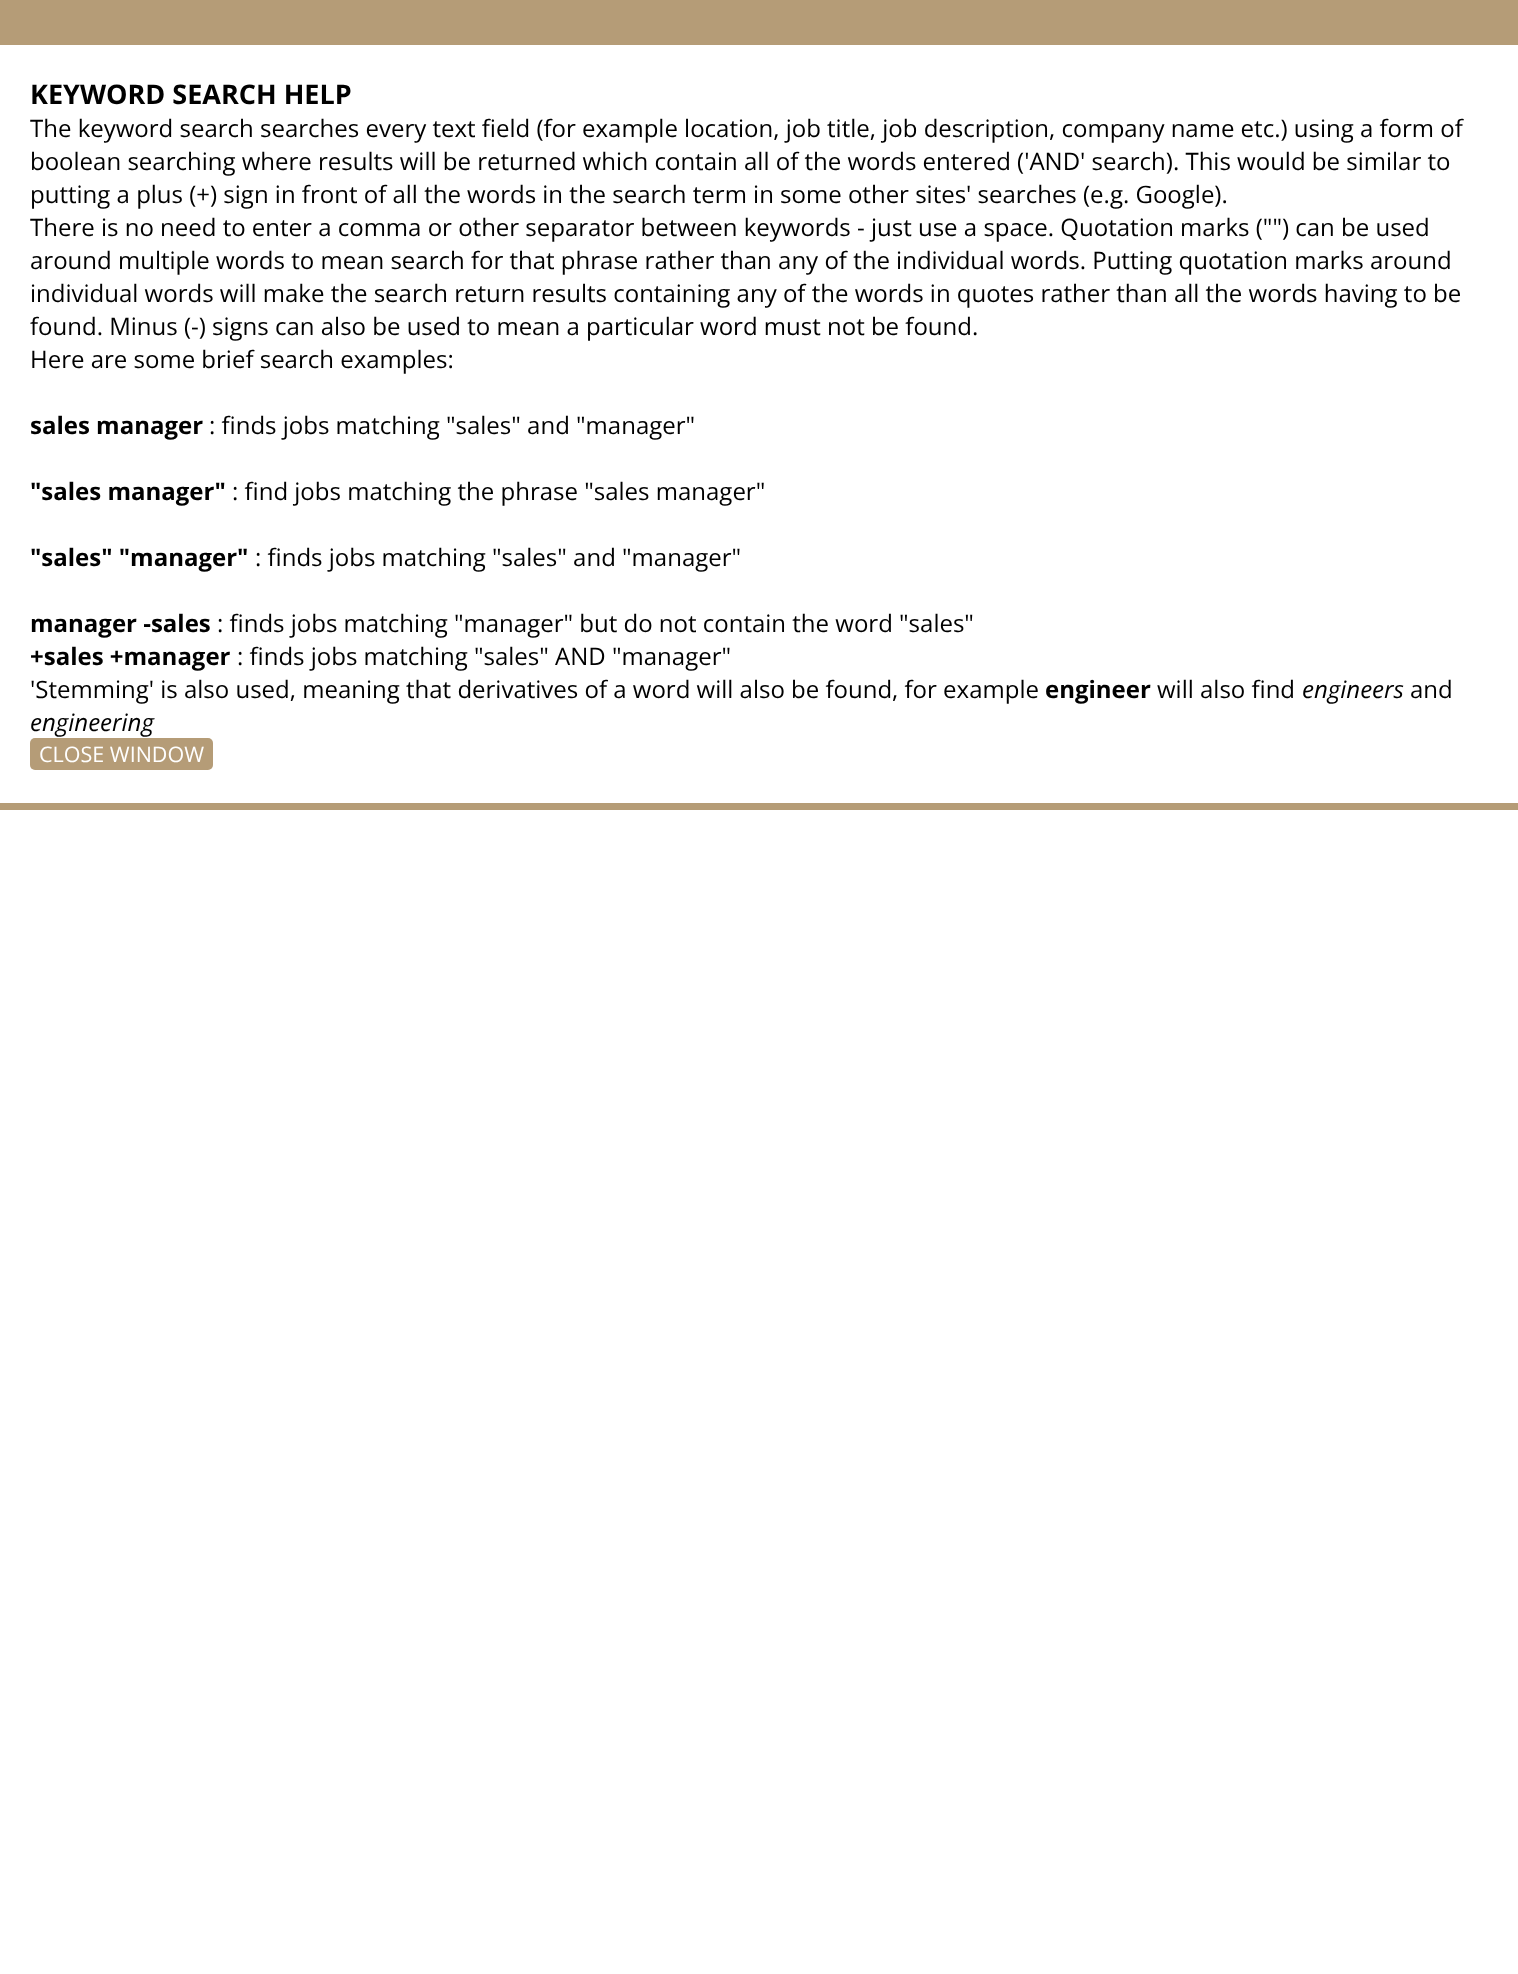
<!DOCTYPE html>
<meta charset="utf-8">
<style>body { margin: 0 } canvas { display: block }</style>
<canvas id="canvas" width="1518" height="1974"></canvas>
<script>
window.onload = function () {
	const canvas = document.getElementById("canvas");
	const ctx = canvas.getContext("2d");
	ctx.miterLimit = 4;
	ctx.fontKerning = "normal";
	function txt(s, x, y) {
		ctx.fillText(s, x, y);
	}
	function fill(x, y, w, h) {
		ctx.fillRect(x, y, w, h);
	}
	function round(x, y, w, h, r) {
		ctx.beginPath();
		ctx.roundRect(x, y, w, h, r);
		ctx.fill();
	}

	ctx.fillStyle = "#FFFFFF";
	fill(0, 0, 1518, 1974);
	ctx.fillStyle = "#B59C77";
	fill(0, 0, 1518, 45);
	fill(0, 803, 1518, 7);
	round(30, 738, 183, 32, 5);
	ctx.font = "bold 27px Open Sans";
	ctx.fillStyle = "#000000";
	txt("KEYWORD SEARCH HELP", 30, 104);
	ctx.font = "24px Open Sans";
	txt("The keyword search searches every text field (for example location, job title, job description, company name etc.) using a form of", 30, 137);
	txt("boolean searching where results will be returned which contain all of the words entered ('AND' search). This would be similar to", 30, 170);
	txt("putting a plus (+) sign in front of all the words in the search term in some other sites' searches (e.g. Google).", 30, 203);
	txt("There is no need to enter a comma or other separator between keywords - just use a space. Quotation marks (\"\") can be used", 30, 236);
	txt("around multiple words to mean search for that phrase rather than any of the individual words. Putting quotation marks around", 30, 269);
	txt("individual words will make the search return results containing any of the words in quotes rather than all the words having to be", 30, 302);
	txt("found. Minus (-) signs can also be used to mean a particular word must not be found.", 30, 335);
	txt("Here are some brief search examples:", 30, 368);
	ctx.font = "bold 24px Open Sans";
	txt("sales manager", 30, 434);
	ctx.font = "24px Open Sans";
	txt(": finds jobs matching \"sales\" and \"manager\"", 209, 434);
	ctx.font = "bold 24px Open Sans";
	txt("\"sales manager\"", 30, 500);
	ctx.font = "24px Open Sans";
	txt(": find jobs matching the phrase \"sales manager\"", 232, 500);
	ctx.font = "bold 24px Open Sans";
	txt("\"sales\" \"manager\"", 30, 566);
	ctx.font = "24px Open Sans";
	txt(": finds jobs matching \"sales\" and \"manager\"", 255, 566);
	ctx.font = "bold 24px Open Sans";
	txt("manager -sales", 30, 632);
	ctx.font = "24px Open Sans";
	txt(": finds jobs matching \"manager\" but do not contain the word \"sales\"", 217, 632);
	ctx.font = "bold 24px Open Sans";
	txt("+sales +manager", 30, 665);
	ctx.font = "24px Open Sans";
	txt(": finds jobs matching \"sales\" AND \"manager\"", 237, 665);
	txt("'Stemming' is also used, meaning that derivatives of a word will also be found, for example", 30, 698);
	ctx.font = "bold 24px Open Sans";
	txt("engineer", 1045, 698);
	ctx.font = "24px Open Sans";
	txt("will also find", 1157, 698);
	ctx.font = "italic 24px Open Sans";
	txt("engineers", 1302, 698);
	ctx.font = "24px Open Sans";
	txt("and", 1410, 698);
	ctx.font = "italic 24px Open Sans";
	txt("engineering", 30, 731);
	ctx.font = "21.5px Open Sans";
	ctx.fillStyle = "#FFFFFF";
	txt("CLOSE WINDOW", 39, 762);
};
</script>
